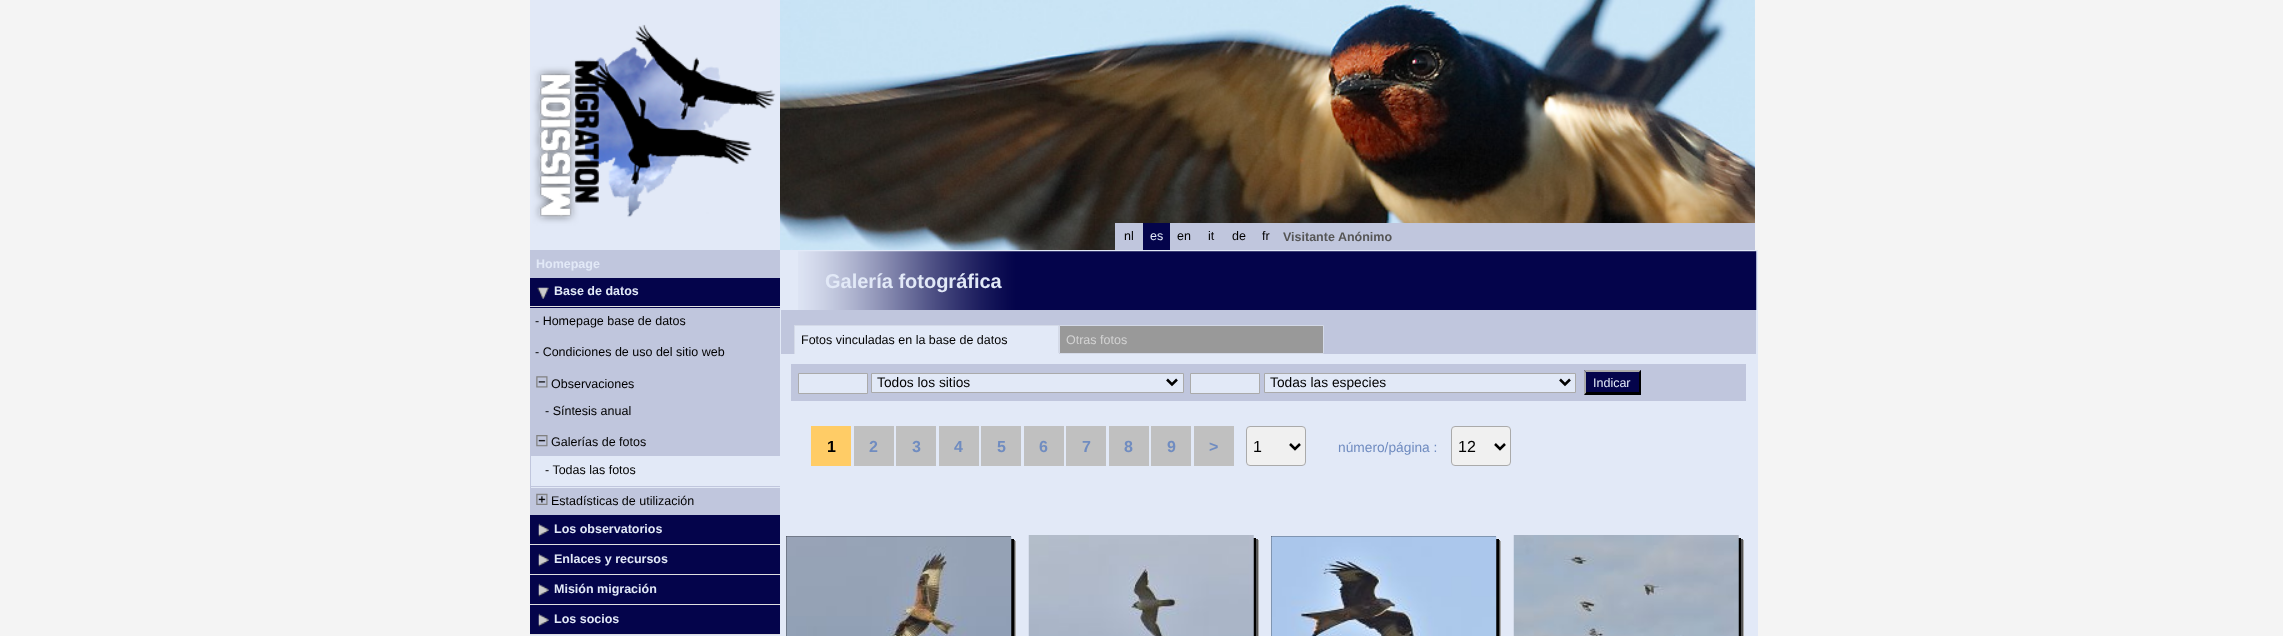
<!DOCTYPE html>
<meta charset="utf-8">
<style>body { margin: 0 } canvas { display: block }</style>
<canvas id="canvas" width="2283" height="636"></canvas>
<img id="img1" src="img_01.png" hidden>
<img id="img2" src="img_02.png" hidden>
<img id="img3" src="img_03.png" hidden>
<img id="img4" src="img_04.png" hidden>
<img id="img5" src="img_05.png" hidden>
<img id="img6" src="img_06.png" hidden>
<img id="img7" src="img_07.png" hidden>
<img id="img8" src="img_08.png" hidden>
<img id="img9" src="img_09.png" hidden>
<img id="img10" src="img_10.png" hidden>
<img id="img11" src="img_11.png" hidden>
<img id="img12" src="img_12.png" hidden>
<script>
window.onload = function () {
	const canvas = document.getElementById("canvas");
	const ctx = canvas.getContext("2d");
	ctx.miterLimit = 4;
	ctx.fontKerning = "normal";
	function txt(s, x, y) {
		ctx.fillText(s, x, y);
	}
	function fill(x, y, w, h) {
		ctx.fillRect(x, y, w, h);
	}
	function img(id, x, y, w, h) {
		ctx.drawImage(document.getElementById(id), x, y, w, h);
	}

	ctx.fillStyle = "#F4F4F4";
	fill(0, 0, 2283, 636);
	img("img1", 530, 0, 250, 250);
	img("img2", 780, 0, 975, 250);
	ctx.fillStyle = "#C0C6DD";
	fill(1115, 223, 28, 27);
	ctx.fillStyle = "#04044B";
	fill(1143, 223, 27, 27);
	ctx.fillStyle = "#C0C6DD";
	fill(1170, 223, 585, 27);
	ctx.fillStyle = "#E2E9F7";
	fill(530, 456, 250, 180);
	ctx.fillStyle = "#C0C6DD";
	fill(530, 250, 250, 28);
	ctx.fillStyle = "#04044B";
	fill(530, 278, 250, 30);
	ctx.fillStyle = "#E0E0E0";
	fill(530, 306, 250, 1);
	img("img3", 537, 287, 12, 12);
	ctx.fillStyle = "#C0C6DD";
	fill(530, 308, 250, 148);
	img("img4", 536, 376, 12, 12);
	img("img5", 536, 435, 12, 12);
	fill(530, 486, 250, 1);
	fill(530, 456, 1, 32);
	fill(530, 488, 250, 27);
	img("img6", 536, 493, 12, 12);
	ctx.fillStyle = "#04044B";
	fill(530, 515, 250, 29);
	ctx.fillStyle = "#E0E0E0";
	fill(530, 544, 250, 1);
	img("img7", 538, 523, 11, 14);
	ctx.fillStyle = "#04044B";
	fill(530, 545, 250, 29);
	ctx.fillStyle = "#E0E0E0";
	fill(530, 574, 250, 1);
	img("img7", 538, 553, 11, 14);
	ctx.fillStyle = "#04044B";
	fill(530, 575, 250, 29);
	ctx.fillStyle = "#E0E0E0";
	fill(530, 604, 250, 1);
	img("img7", 538, 583, 11, 14);
	ctx.fillStyle = "#04044B";
	fill(530, 605, 250, 29);
	ctx.fillStyle = "#E0E0E0";
	fill(530, 634, 250, 1);
	img("img7", 538, 613, 11, 14);
	ctx.fillStyle = "#E2E9F7";
	fill(780, 250, 978, 386);
	img("img8", 798, 251, 959, 59);
	ctx.fillStyle = "#C0C6DD";
	fill(781, 310, 975, 44);
	ctx.fillStyle = "#E2E9F7";
	fill(795, 326, 263, 27);
	ctx.fillStyle = "#D4DAE8";
	fill(794, 325, 265, 1);
	fill(1058, 325, 1, 29);
	ctx.fillStyle = "#E2E9F7";
	fill(794, 353, 265, 1);
	ctx.fillStyle = "#D4DAE8";
	fill(794, 325, 1, 29);
	ctx.fillStyle = "#999999";
	ctx.beginPath();
	ctx.rect(1059.5, 325.5, 264, 28);
	ctx.fill();
	ctx.strokeStyle = "#D4DAE8";
	ctx.stroke();
	ctx.fillStyle = "#C0C6DD";
	fill(791, 364, 955, 37);
	ctx.fillStyle = "#E2E9F7";
	ctx.beginPath();
	ctx.rect(798.5, 373.5, 69, 20);
	ctx.fill();
	ctx.strokeStyle = "#AAAAAA";
	ctx.stroke();
	ctx.beginPath();
	ctx.rect(871.5, 373.5, 312, 19);
	ctx.fill();
	ctx.stroke();
	ctx.beginPath();
	ctx.moveTo(1167, 379.5);
	ctx.lineTo(1172, 384.5);
	ctx.lineTo(1177, 379.5);
	ctx.strokeStyle = "#000000";
	ctx.lineWidth = 2.5;
	ctx.stroke();
	ctx.beginPath();
	ctx.rect(1190.5, 373.5, 69, 20);
	ctx.fill();
	ctx.strokeStyle = "#AAAAAA";
	ctx.lineWidth = 1;
	ctx.stroke();
	ctx.beginPath();
	ctx.rect(1264.5, 373.5, 311, 19);
	ctx.fill();
	ctx.stroke();
	ctx.beginPath();
	ctx.moveTo(1560, 379.5);
	ctx.lineTo(1565, 384.5);
	ctx.lineTo(1570, 379.5);
	ctx.strokeStyle = "#000000";
	ctx.lineWidth = 2.5;
	ctx.stroke();
	ctx.fillStyle = "#04044B";
	fill(1584, 370, 57, 25);
	ctx.fillStyle = "#AAAAAA";
	ctx.beginPath();
	ctx.moveTo(1584, 370);
	ctx.lineTo(1641, 370);
	ctx.lineTo(1639, 372);
	ctx.lineTo(1586, 372);
	ctx.closePath();
	ctx.fill();
	ctx.fillStyle = "#000000";
	ctx.beginPath();
	ctx.moveTo(1641, 370);
	ctx.lineTo(1641, 395);
	ctx.lineTo(1639, 392.5);
	ctx.lineTo(1639, 372.5);
	ctx.closePath();
	ctx.fill();
	ctx.beginPath();
	ctx.moveTo(1641, 395);
	ctx.lineTo(1584, 395);
	ctx.lineTo(1586, 392);
	ctx.lineTo(1639, 392);
	ctx.closePath();
	ctx.fill();
	ctx.fillStyle = "#AAAAAA";
	ctx.beginPath();
	ctx.moveTo(1584, 395);
	ctx.lineTo(1584, 370);
	ctx.lineTo(1586, 372.5);
	ctx.lineTo(1586, 392.5);
	ctx.closePath();
	ctx.fill();
	ctx.fillStyle = "#FFCC66";
	fill(811, 426, 40, 40);
	ctx.fillStyle = "#C0C0C0";
	fill(854, 426, 40, 40);
	fill(896, 426, 40, 40);
	fill(939, 426, 40, 40);
	fill(981, 426, 40, 40);
	fill(1024, 426, 40, 40);
	fill(1066, 426, 40, 40);
	fill(1109, 426, 40, 40);
	fill(1151, 426, 40, 40);
	fill(1194, 426, 40, 40);
	ctx.fillStyle = "#F0F0F0";
	ctx.beginPath();
	ctx.roundRect(1246.5, 426.5, 59, 39, 3.5);
	ctx.fill();
	ctx.strokeStyle = "#AAAAAA";
	ctx.lineWidth = 1;
	ctx.stroke();
	ctx.beginPath();
	ctx.moveTo(1290, 444);
	ctx.lineTo(1295, 449);
	ctx.lineTo(1300, 444);
	ctx.strokeStyle = "#000000";
	ctx.lineWidth = 2.5;
	ctx.stroke();
	ctx.beginPath();
	ctx.roundRect(1451.5, 426.5, 59, 39, 3.5);
	ctx.fill();
	ctx.strokeStyle = "#AAAAAA";
	ctx.lineWidth = 1;
	ctx.stroke();
	ctx.beginPath();
	ctx.moveTo(1495, 444);
	ctx.lineTo(1500, 449);
	ctx.lineTo(1505, 444);
	ctx.strokeStyle = "#000000";
	ctx.lineWidth = 2.5;
	ctx.stroke();
	ctx.fillStyle = "#AAAAAA";
	fill(1015, 541, 1, 95);
	ctx.fillStyle = "#555555";
	fill(1014, 540, 1, 96);
	ctx.fillStyle = "#000000";
	fill(1011, 539, 3, 97);
	fill(786, 536, 225, 100);
	img("img9", 786, 536, 226, 100);
	ctx.fillStyle = "#AAAAAA";
	fill(1258, 540, 1, 96);
	ctx.fillStyle = "#555555";
	fill(1256, 539, 2, 97);
	ctx.fillStyle = "#000000";
	fill(1253, 538, 3, 98);
	img("img10", 1028, 535, 226, 101);
	ctx.fillStyle = "#AAAAAA";
	fill(1500, 541, 1, 95);
	ctx.fillStyle = "#555555";
	fill(1499, 540, 1, 96);
	ctx.fillStyle = "#000000";
	fill(1496, 539, 3, 97);
	fill(1271, 536, 225, 100);
	img("img11", 1271, 536, 226, 100);
	ctx.fillStyle = "#AAAAAA";
	fill(1743, 540, 1, 96);
	ctx.fillStyle = "#555555";
	fill(1741, 539, 2, 97);
	ctx.fillStyle = "#000000";
	fill(1738, 538, 3, 98);
	img("img12", 1513, 535, 226, 101);
	ctx.font = "12.5px Liberation Sans";
	txt("nl", 1124, 240);
	ctx.fillStyle = "#E2E9F7";
	txt("es", 1150, 240);
	ctx.fillStyle = "#000000";
	txt("en", 1177, 240);
	txt("it", 1208, 240);
	txt("de", 1232, 240);
	txt("fr", 1262, 240);
	ctx.font = "bold 12.5px Liberation Sans";
	ctx.fillStyle = "#555555";
	txt("Visitante Anónimo", 1283, 241);
	ctx.fillStyle = "#E2E9F7";
	txt("Homepage", 536, 268);
	txt("Base de datos", 554, 295);
	ctx.font = "12.5px Liberation Sans";
	ctx.fillStyle = "#000000";
	txt("- Homepage base de datos", 535, 325);
	txt("- Condiciones de uso del sitio web", 535, 356);
	txt("Observaciones", 551, 388);
	txt("- Síntesis anual", 545, 415);
	txt("Galerías de fotos", 551, 446);
	txt("- Todas las fotos", 545, 474);
	txt("Estadísticas de utilización", 551, 505);
	ctx.font = "bold 12.5px Liberation Sans";
	ctx.fillStyle = "#E2E9F7";
	txt("Los observatorios", 554, 533);
	txt("Enlaces y recursos", 554, 563);
	txt("Misión migración", 554, 593);
	txt("Los socios", 554, 623);
	ctx.font = "bold 20px Liberation Sans";
	txt("Galería fotográfica", 825, 288);
	ctx.font = "12.5px Liberation Sans";
	ctx.fillStyle = "#000000";
	txt("Fotos vinculadas en la base de datos", 801, 344);
	ctx.fillStyle = "#D3D3D3";
	txt("Otras fotos", 1066, 344);
	ctx.font = "13.75px Liberation Sans";
	ctx.fillStyle = "#000000";
	txt("Todos los sitios", 877, 387);
	txt("Todas las especies", 1270, 387);
	ctx.font = "12.5px Liberation Sans";
	ctx.fillStyle = "#E2E9F7";
	txt("Indicar", 1593, 387);
	ctx.font = "bold 16px Liberation Sans";
	ctx.fillStyle = "#000000";
	txt("1", 827, 452);
	ctx.fillStyle = "#708CC0";
	txt("2", 869, 452);
	txt("3", 912, 452);
	txt("4", 954, 452);
	txt("5", 997, 452);
	txt("6", 1039, 452);
	txt("7", 1082, 452);
	txt("8", 1124, 452);
	txt("9", 1167, 452);
	txt(">", 1209, 452);
	ctx.font = "16px Liberation Sans";
	ctx.fillStyle = "#000000";
	txt("1", 1253, 452);
	ctx.font = "13.75px Liberation Sans";
	ctx.fillStyle = "#708CC0";
	txt("número/página :", 1338, 452);
	ctx.font = "16px Liberation Sans";
	ctx.fillStyle = "#000000";
	txt("12", 1458, 452);
};
</script>
